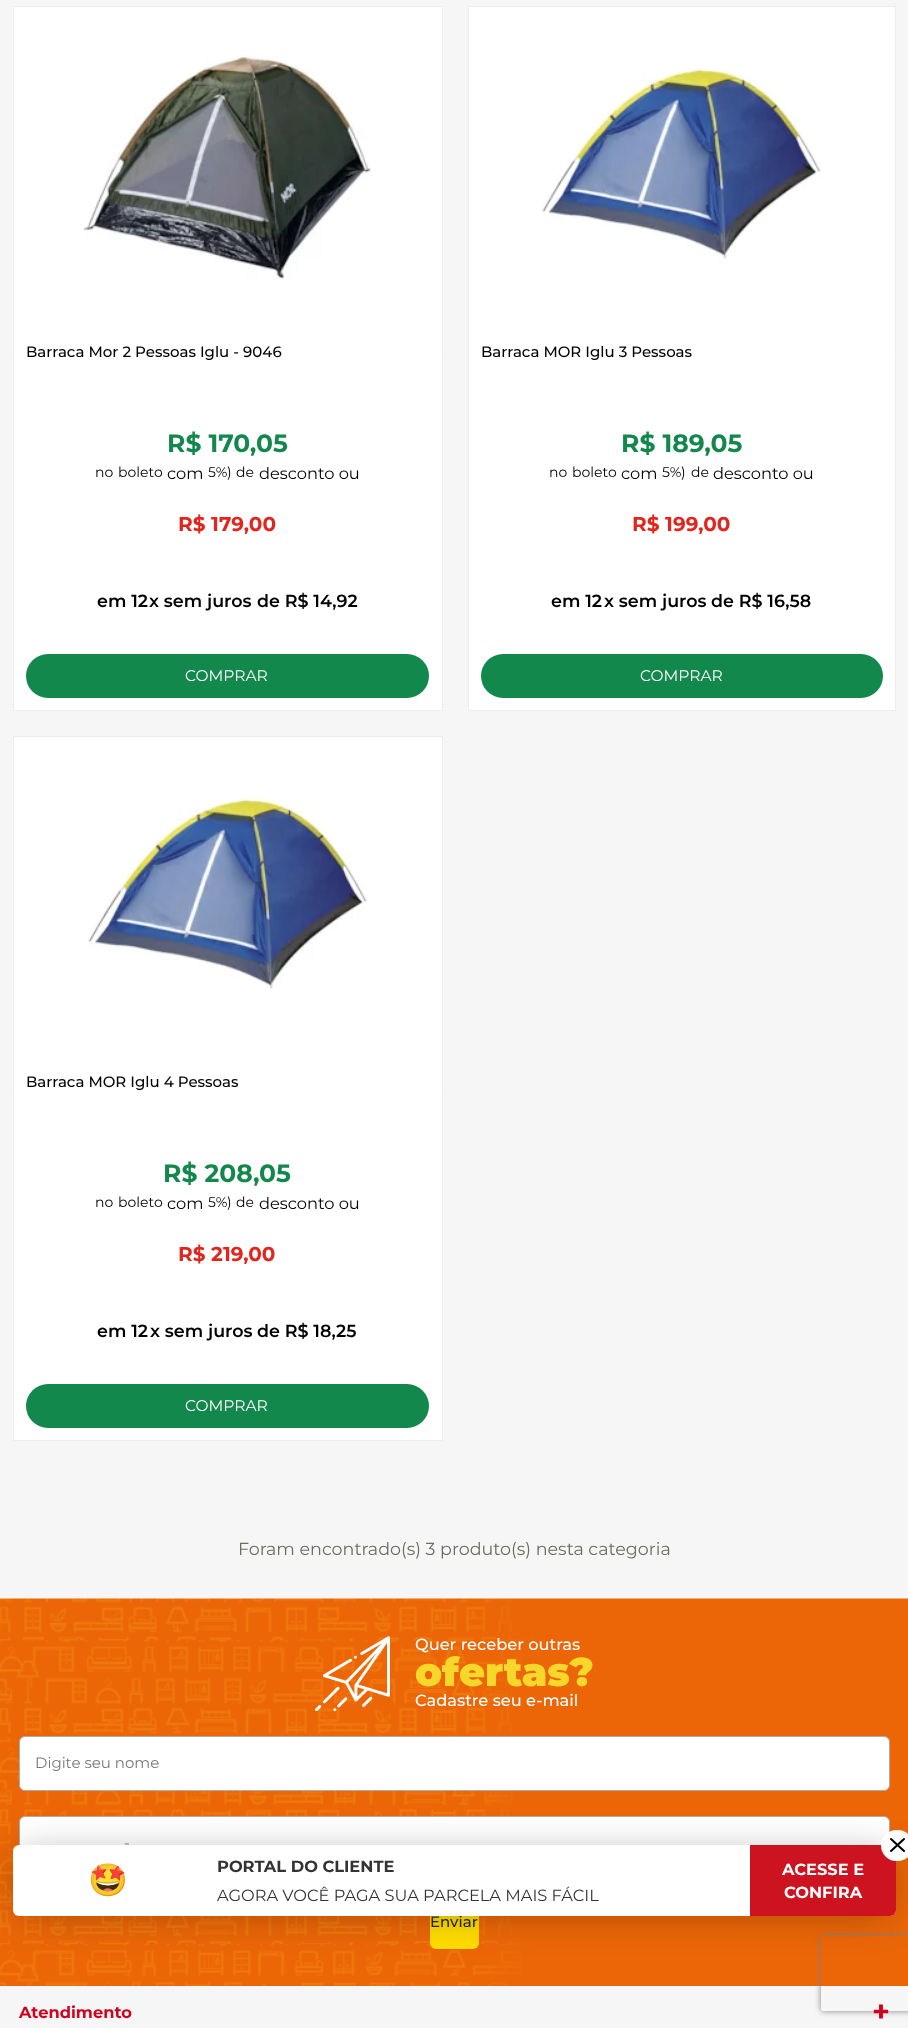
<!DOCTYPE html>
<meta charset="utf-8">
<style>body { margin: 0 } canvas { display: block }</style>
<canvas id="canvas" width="908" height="2028"></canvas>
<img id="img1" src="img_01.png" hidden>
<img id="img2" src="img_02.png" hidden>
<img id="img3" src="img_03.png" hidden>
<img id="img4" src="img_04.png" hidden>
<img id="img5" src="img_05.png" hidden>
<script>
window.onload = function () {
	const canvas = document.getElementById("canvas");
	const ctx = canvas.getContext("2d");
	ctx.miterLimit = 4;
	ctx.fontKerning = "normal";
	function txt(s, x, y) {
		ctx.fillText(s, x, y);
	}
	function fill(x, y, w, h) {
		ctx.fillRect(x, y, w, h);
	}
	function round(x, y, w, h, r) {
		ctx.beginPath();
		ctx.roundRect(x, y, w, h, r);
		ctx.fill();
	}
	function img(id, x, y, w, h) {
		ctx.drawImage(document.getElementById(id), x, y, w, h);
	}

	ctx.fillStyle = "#F6F6F6";
	fill(0, 0, 908, 2028);
	ctx.fillStyle = "#FFFFFF";
	ctx.beginPath();
	ctx.rect(13.5, 6.5, 429, 704);
	ctx.fill();
	ctx.strokeStyle = "#EDEDED";
	ctx.stroke();
	img("img1", 83, 50, 288, 230);
	ctx.fillStyle = "#13884C";
	round(26, 654, 403, 44, 22);
	ctx.fillStyle = "#FFFFFF";
	ctx.beginPath();
	ctx.rect(468.5, 6.5, 427, 704);
	ctx.fill();
	ctx.stroke();
	img("img2", 542, 68, 280, 192);
	ctx.fillStyle = "#13884C";
	round(481, 654, 402, 44, 22);
	ctx.fillStyle = "#FFFFFF";
	ctx.beginPath();
	ctx.rect(13.5, 736.5, 429, 704);
	ctx.fill();
	ctx.stroke();
	img("img3", 88, 798, 280, 192);
	ctx.fillStyle = "#13884C";
	round(26, 1384, 403, 44, 22);
	img("img4", 0, 1598, 908, 388);
	img("img5", 315, 1636, 75, 75);
	ctx.fillStyle = "#FFFFFF";
	ctx.beginPath();
	ctx.roundRect(19.5, 1736.5, 870, 54, 5.5);
	ctx.fill();
	ctx.strokeStyle = "#ACACAC";
	ctx.stroke();
	ctx.beginPath();
	ctx.roundRect(19.5, 1816.5, 870, 54, 5.5);
	ctx.fill();
	ctx.stroke();
	ctx.fillStyle = "#FFDC00";
	round(430, 1896, 49, 53, 6);
	ctx.save();
	ctx.beginPath();
	ctx.moveTo(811, 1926);
	ctx.lineTo(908, 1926);
	ctx.lineTo(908, 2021);
	ctx.lineTo(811, 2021);
	ctx.closePath();
	ctx.moveTo(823.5, 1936);
	ctx.lineTo(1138.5, 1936);
	ctx.bezierCurveTo(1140, 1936, 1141, 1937, 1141, 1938.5);
	ctx.lineTo(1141, 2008.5);
	ctx.bezierCurveTo(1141, 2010, 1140, 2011, 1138.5, 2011);
	ctx.lineTo(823.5, 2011);
	ctx.bezierCurveTo(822, 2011, 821, 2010, 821, 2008.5);
	ctx.lineTo(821, 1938.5);
	ctx.bezierCurveTo(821, 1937, 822, 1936, 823.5, 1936);
	ctx.closePath();
	ctx.clip("evenodd");
	ctx.fillStyle = "#808080";
	ctx.filter = "blur(3px)";
	ctx.beginPath();
	ctx.roundRect(821, 1936, 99, 75, 2.5);
	ctx.fill();
	ctx.filter = "none";
	ctx.restore();
	ctx.fillStyle = "rgba(0, 0, 0, 0.3)";
	ctx.filter = "blur(19px)";
	ctx.beginPath();
	ctx.rect(19, 1854, 871, 59);
	ctx.fill();
	ctx.filter = "none";
	ctx.font = "500 15px Montserrat";
	ctx.fillStyle = "#000000";
	txt("Barraca Mor 2 Pessoas Iglu - 9046", 26, 357);
	ctx.font = "bold 25px Montserrat";
	ctx.fillStyle = "#13884C";
	txt("R$ 170,05", 167, 452);
	ctx.font = "14px Montserrat";
	ctx.fillStyle = "#000000";
	txt("no", 95, 477);
	txt("boleto", 118, 477);
	ctx.font = "16.25px Montserrat";
	txt("com", 167, 479);
	ctx.font = "14px Montserrat";
	txt("5%)", 208, 477);
	txt("de", 236, 477);
	ctx.font = "16.25px Montserrat";
	txt("desconto ou", 259, 479);
	ctx.font = "bold 20px Montserrat";
	ctx.fillStyle = "#E2251D";
	txt("R$ 179,00", 178, 531);
	ctx.font = "600 17.5px Montserrat";
	ctx.fillStyle = "#000000";
	txt("em 12", 97, 607);
	txt("x sem juros", 149, 607);
	txt("de R$ 14,92", 257, 607);
	ctx.font = "15.5px Montserrat";
	ctx.fillStyle = "#FFFFFF";
	txt("COMPRAR", 185, 681);
	ctx.font = "500 15px Montserrat";
	ctx.fillStyle = "#000000";
	txt("Barraca MOR Iglu 3 Pessoas", 481, 357);
	ctx.font = "bold 25px Montserrat";
	ctx.fillStyle = "#13884C";
	txt("R$ 189,05", 621, 452);
	ctx.font = "14px Montserrat";
	ctx.fillStyle = "#000000";
	txt("no", 549, 477);
	txt("boleto", 572, 477);
	ctx.font = "16.25px Montserrat";
	txt("com", 621, 479);
	ctx.font = "14px Montserrat";
	txt("5%)", 662, 477);
	txt("de", 691, 477);
	ctx.font = "16.25px Montserrat";
	txt("desconto ou", 713, 479);
	ctx.font = "bold 20px Montserrat";
	ctx.fillStyle = "#E2251D";
	txt("R$ 199,00", 632, 531);
	ctx.font = "600 17.5px Montserrat";
	ctx.fillStyle = "#000000";
	txt("em 12", 551, 607);
	txt("x sem juros", 604, 607);
	txt("de R$ 16,58", 711, 607);
	ctx.font = "15.5px Montserrat";
	ctx.fillStyle = "#FFFFFF";
	txt("COMPRAR", 640, 681);
	ctx.font = "500 15px Montserrat";
	ctx.fillStyle = "#000000";
	txt("Barraca MOR Iglu 4 Pessoas", 26, 1087);
	ctx.font = "bold 25px Montserrat";
	ctx.fillStyle = "#13884C";
	txt("R$ 208,05", 163, 1182);
	ctx.font = "14px Montserrat";
	ctx.fillStyle = "#000000";
	txt("no", 95, 1207);
	txt("boleto", 118, 1207);
	ctx.font = "16.25px Montserrat";
	txt("com", 167, 1209);
	ctx.font = "14px Montserrat";
	txt("5%)", 208, 1207);
	txt("de", 236, 1207);
	ctx.font = "16.25px Montserrat";
	txt("desconto ou", 259, 1209);
	ctx.font = "bold 20px Montserrat";
	ctx.fillStyle = "#E2251D";
	txt("R$ 219,00", 178, 1261);
	ctx.font = "600 17.5px Montserrat";
	ctx.fillStyle = "#000000";
	txt("em 12", 97, 1337);
	txt("x sem juros", 150, 1337);
	txt("de R$ 18,25", 257, 1337);
	ctx.font = "15.5px Montserrat";
	ctx.fillStyle = "#FFFFFF";
	txt("COMPRAR", 185, 1411);
	ctx.font = "17.5px Montserrat";
	ctx.fillStyle = "#6D6D5F";
	txt("Foram encontrado(s) 3 produto(s) nesta categoria", 238, 1555);
	ctx.font = "500 16.25px Montserrat";
	ctx.fillStyle = "#FFFFFF";
	txt("Quer receber outras", 415, 1650);
	ctx.font = "900 40px Montserrat";
	ctx.fillStyle = "#F7D72A";
	txt("ofertas?", 415, 1686);
	ctx.font = "500 16.25px Montserrat";
	ctx.fillStyle = "#FFFFFF";
	txt("Cadastre seu e-mail", 415, 1706);
	ctx.font = "15px Montserrat";
	ctx.fillStyle = "#77787B";
	txt("Digite seu nome", 35, 1768);
	txt("-", 124, 1848);
	ctx.font = "500 15px Montserrat";
	ctx.fillStyle = "#232323";
	txt("Enviar", 430, 1927);
	ctx.fillStyle = "#FFFFFF";
	round(13, 1845, 883, 71, 6);
	ctx.font = "32px Noto Color Emoji";
	ctx.fillStyle = "#333333";
	txt("🤩", 88, 1891);
	ctx.font = "bold 16.25px Montserrat";
	txt("PORTAL DO CLIENTE", 217, 1872);
	ctx.fillStyle = "#CC131F";
	ctx.beginPath();
	ctx.roundRect(750, 1845, 146, 71, [0, 6, 6, 0]);
	ctx.fill();
	ctx.fillStyle = "#FFFFFF";
	round(881, 1830, 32, 31, 15.5);
	ctx.beginPath();
	ctx.moveTo(904, 1839);
	ctx.lineTo(891, 1851);
	ctx.moveTo(891, 1839);
	ctx.lineTo(904, 1851);
	ctx.strokeStyle = "#000000";
	ctx.lineWidth = 2.1;
	ctx.lineCap = "round";
	ctx.lineJoin = "round";
	ctx.stroke();
	txt("ACESSE E", 782, 1875);
	txt("CONFIRA", 784, 1898);
	ctx.font = "16.25px Montserrat";
	ctx.fillStyle = "#333333";
	txt("AGORA VOCÊ PAGA SUA PARCELA MAIS FÁCIL", 217, 1901);
	ctx.font = "bold 16.25px Montserrat";
	ctx.fillStyle = "#CF031D";
	txt("Atendimento", 19, 2018);
	ctx.font = "bold 30px Montserrat";
	txt("+", 872, 2022);
};
</script>
